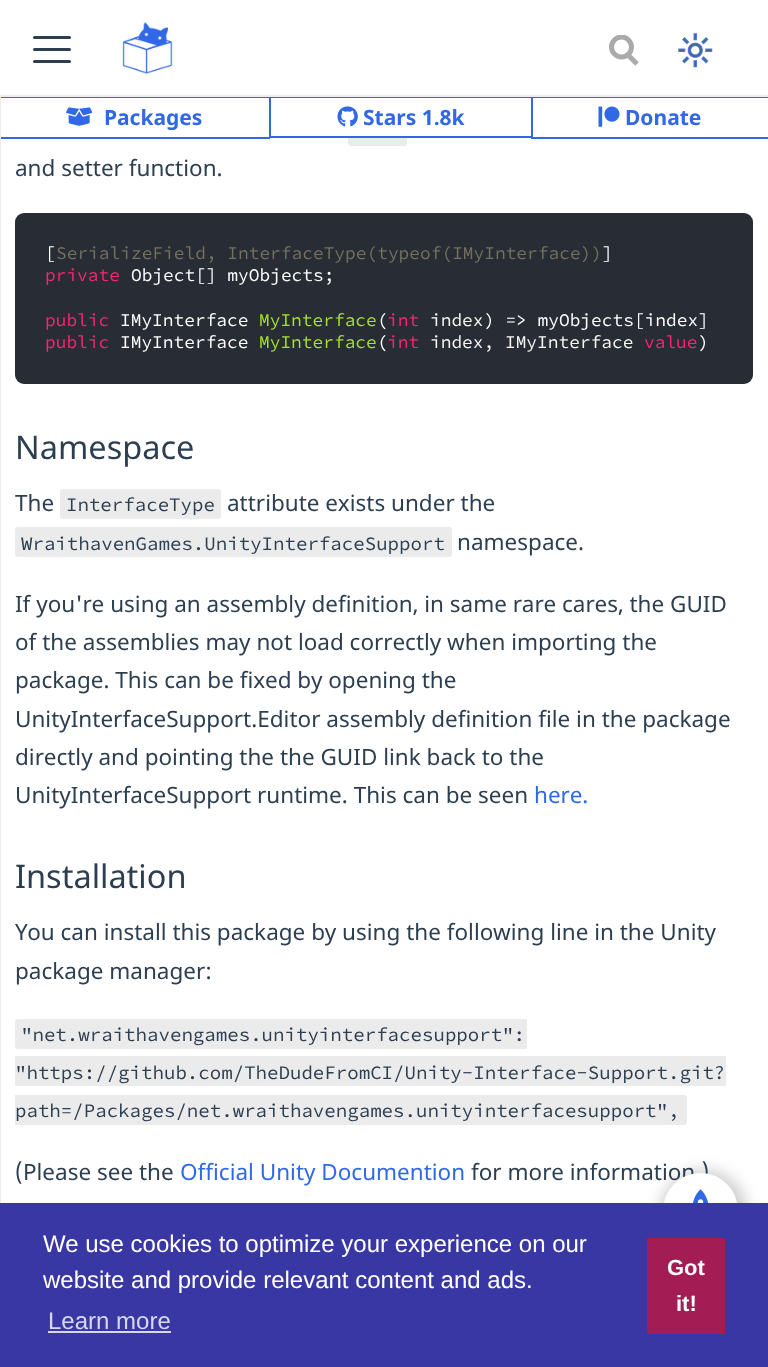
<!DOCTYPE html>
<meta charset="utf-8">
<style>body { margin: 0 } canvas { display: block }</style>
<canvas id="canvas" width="768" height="1367"></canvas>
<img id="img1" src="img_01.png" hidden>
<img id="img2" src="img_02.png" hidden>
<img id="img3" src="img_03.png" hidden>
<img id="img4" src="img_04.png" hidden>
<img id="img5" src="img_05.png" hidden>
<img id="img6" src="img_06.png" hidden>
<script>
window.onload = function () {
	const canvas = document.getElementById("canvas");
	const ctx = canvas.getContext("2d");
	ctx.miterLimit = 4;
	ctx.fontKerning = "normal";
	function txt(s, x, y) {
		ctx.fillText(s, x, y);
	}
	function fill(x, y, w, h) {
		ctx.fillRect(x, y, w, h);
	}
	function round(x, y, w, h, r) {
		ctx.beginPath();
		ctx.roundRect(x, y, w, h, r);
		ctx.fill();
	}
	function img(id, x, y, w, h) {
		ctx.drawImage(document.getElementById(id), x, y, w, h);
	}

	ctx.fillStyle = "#FFFFFF";
	fill(0, 0, 768, 1367);
	ctx.fillStyle = "#3068E5";
	fill(0, 97, 270, 1);
	fill(0, 137, 270, 2);
	ctx.fillStyle = "#EBEBEC";
	round(348, 116, 59, 30, 3);
	ctx.fillStyle = "#FFFFFF";
	fill(348, 116, 59, 20);
	ctx.strokeStyle = "#3068E5";
	ctx.lineWidth = 2;
	ctx.strokeRect(270, 97, 262, 40);
	ctx.fillStyle = "#EAECEF";
	fill(0, 95, 768, 2);
	ctx.fillStyle = "#2C3E50";
	round(33, 36, 38, 3, 1.5);
	round(33, 48, 38, 3, 1.5);
	round(33, 60, 38, 3, 1.5);
	img("img1", 122, 22, 51, 52);
	ctx.beginPath();
	ctx.moveTo(637, 64);
	ctx.lineTo(627, 54);
	ctx.strokeStyle = "#AAAAAA";
	ctx.lineWidth = 5;
	ctx.stroke();
	ctx.save();
	ctx.beginPath();
	ctx.rect(609, 35, 30, 33);
	ctx.clip();
	ctx.beginPath();
	ctx.arc(621.5, 47, 10, 0, Math.PI * 2);
	ctx.stroke();
	ctx.restore();
	img("img2", 678, 33, 35, 35);
	ctx.fillStyle = "#EAECEF";
	fill(0, 97, 1, 1106);
	img("img3", 66, 107, 27, 19);
	img("img4", 337, 106, 21, 21);
	ctx.fillStyle = "#3068E5";
	fill(531, 97, 237, 1);
	fill(531, 137, 237, 2);
	img("img5", 598, 106, 22, 21);
	ctx.fillStyle = "#282C34";
	round(15, 213, 738, 171, 9);
	ctx.fillStyle = "#EBEBEC";
	round(60, 489, 161, 30, 3);
	round(15, 527, 437, 30, 3);
	ctx.beginPath();
	ctx.roundRect(15, 1019, 512, 30, [3, 0, 0, 3]);
	ctx.fill();
	fill(15, 1056, 711, 30);
	ctx.beginPath();
	ctx.roundRect(15, 1095, 672, 30, [0, 3, 3, 0]);
	ctx.fill();
	ctx.fillStyle = "rgba(0, 0, 0, 0.2)";
	ctx.filter = "blur(7.5px)";
	ctx.beginPath();
	ctx.roundRect(660, 1170, 87, 87, 43.5);
	ctx.fill();
	ctx.filter = "none";
	ctx.font = "bold 21px Noto Sans";
	ctx.fillStyle = "#3068E5";
	txt("Packages", 104, 125);
	txt("Stars 1.8k", 363, 125);
	txt("Donate", 625, 125);
	ctx.font = "22.5px Noto Sans";
	ctx.fillStyle = "#2C3E50";
	txt("and setter function.", 15, 176);
	ctx.font = "17.85px Source Code Pro";
	ctx.fillStyle = "#FFFFFF";
	txt("[", 45, 259);
	ctx.fillStyle = "#75715E";
	txt("SerializeField, InterfaceType(typeof(IMyInterface))", 56, 259);
	ctx.fillStyle = "#FFFFFF";
	txt("]", 602, 259);
	ctx.fillStyle = "#F92672";
	txt("private", 45, 281);
	ctx.fillStyle = "#FFFFFF";
	txt("Object[] myObjects;", 131, 281);
	ctx.fillStyle = "#F92672";
	txt("public", 45, 326);
	ctx.fillStyle = "#FFFFFF";
	txt("IMyInterface", 120, 326);
	ctx.fillStyle = "#A6E22E";
	txt("MyInterface", 259, 326);
	ctx.fillStyle = "#FFFFFF";
	txt("(", 377, 326);
	ctx.fillStyle = "#F92672";
	txt("int", 387, 326);
	ctx.fillStyle = "#F8F8F2";
	txt("index", 430, 326);
	ctx.fillStyle = "#FFFFFF";
	txt(") => myObjects[index]", 484, 326);
	ctx.fillStyle = "#F92672";
	txt("public", 45, 348);
	ctx.fillStyle = "#FFFFFF";
	txt("IMyInterface", 120, 348);
	ctx.fillStyle = "#A6E22E";
	txt("MyInterface", 259, 348);
	ctx.fillStyle = "#FFFFFF";
	txt("(", 377, 348);
	ctx.fillStyle = "#F92672";
	txt("int", 387, 348);
	ctx.fillStyle = "#F8F8F2";
	txt("index, IMyInterface", 430, 348);
	ctx.fillStyle = "#F92672";
	txt("value", 644, 348);
	ctx.fillStyle = "#FFFFFF";
	txt(")", 698, 348);
	ctx.font = "32.5px Noto Sans";
	ctx.fillStyle = "#2C3E50";
	txt("Namespace", 15, 459);
	ctx.font = "22.5px Noto Sans";
	txt("The", 15, 511);
	ctx.font = "19.1px Source Code Pro";
	txt("InterfaceType", 66, 511);
	ctx.font = "22.5px Noto Sans";
	txt("attribute exists under the", 227, 511);
	ctx.font = "19.1px Source Code Pro";
	txt("WraithavenGames.UnityInterfaceSupport", 21, 550);
	ctx.font = "22.5px Noto Sans";
	txt("namespace.", 457, 550);
	txt("If you're using an assembly definition, in same rare cares, the GUID", 15, 612);
	txt("of the assemblies may not load correctly when importing the", 15, 650);
	txt("package. This can be fixed by opening the", 15, 688);
	txt("UnityInterfaceSupport.Editor assembly definition file in the package", 15, 727);
	txt("directly and pointing the the GUID link back to the", 15, 765);
	txt("UnityInterfaceSupport runtime. This can be seen", 15, 803);
	ctx.fillStyle = "#3068E5";
	txt("here.", 534, 803);
	ctx.font = "32.5px Noto Sans";
	ctx.fillStyle = "#2C3E50";
	txt("Installation", 15, 888);
	ctx.font = "22.5px Noto Sans";
	txt("You can install this package by using the following line in the Unity", 15, 940);
	txt("package manager:", 15, 979);
	ctx.font = "19.1px Source Code Pro";
	txt("\"net.wraithavengames.unityinterfacesupport\":", 21, 1041);
	txt("\"https://github.com/TheDudeFromCI/Unity-Interface-Support.git?", 15, 1079);
	txt("path=/Packages/net.wraithavengames.unityinterfacesupport\",", 15, 1117);
	ctx.font = "22.5px Noto Sans";
	txt("(Please see the", 15, 1180);
	ctx.fillStyle = "#3068E5";
	txt("Official Unity Documention", 180, 1180);
	ctx.fillStyle = "#2C3E50";
	txt("for more information.)", 471, 1180);
	ctx.fillStyle = "#FFFFFF";
	ctx.beginPath();
	ctx.arc(700.5, 1210.5, 37.5, 0, Math.PI * 2);
	ctx.fill();
	img("img6", 693, 1189, 15, 14);
	ctx.fillStyle = "#3937A3";
	fill(0, 1203, 768, 164);
	ctx.font = "24px Liberation Sans";
	ctx.fillStyle = "#FFFFFF";
	txt("We use cookies to optimize your experience on our", 43, 1252);
	txt("website and provide relevant content and ads.", 43, 1288);
	ctx.fillStyle = "#D7D7ED";
	txt("Learn more", 48, 1329);
	fill(48, 1331, 123, 2);
	ctx.fillStyle = "#A31C54";
	fill(647, 1238, 78, 96);
	ctx.font = "bold 22px Liberation Sans";
	ctx.fillStyle = "#FFFFFF";
	txt("Got", 667, 1275);
	txt("it!", 676, 1311);
};
</script>
